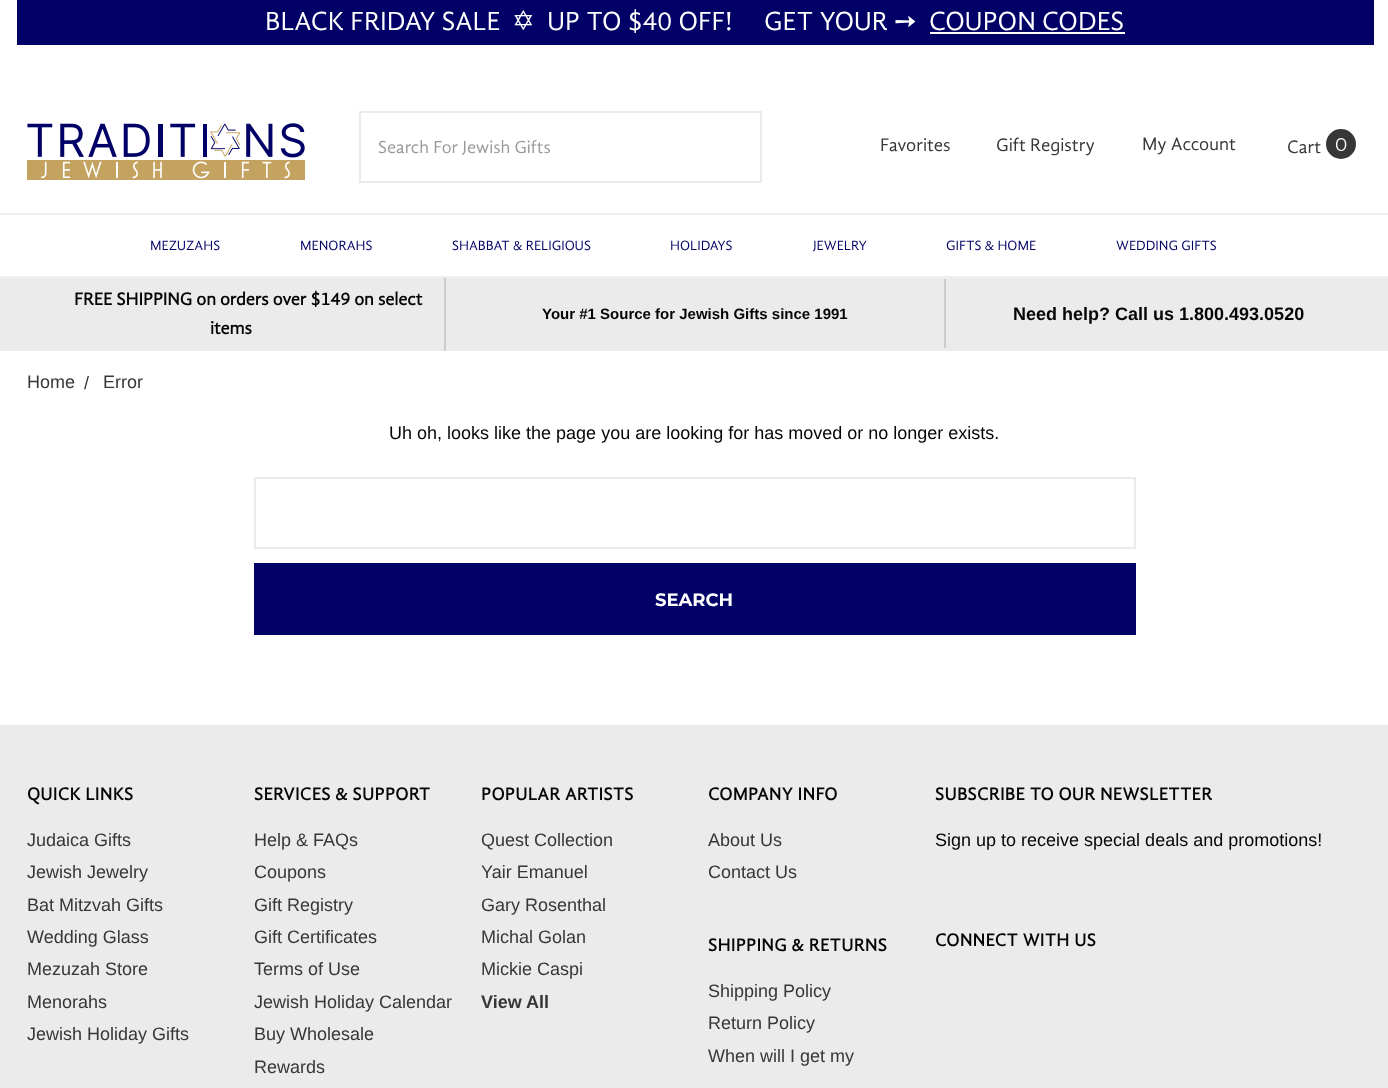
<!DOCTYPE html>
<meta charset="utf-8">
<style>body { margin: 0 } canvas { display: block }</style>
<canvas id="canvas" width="1388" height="1088"></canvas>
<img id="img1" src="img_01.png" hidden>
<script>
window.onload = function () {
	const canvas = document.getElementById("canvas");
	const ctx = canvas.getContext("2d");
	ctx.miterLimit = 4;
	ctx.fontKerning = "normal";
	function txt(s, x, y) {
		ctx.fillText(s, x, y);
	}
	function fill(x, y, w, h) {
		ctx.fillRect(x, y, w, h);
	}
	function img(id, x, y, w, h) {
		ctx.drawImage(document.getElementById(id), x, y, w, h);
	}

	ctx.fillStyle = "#FFFFFF";
	fill(0, 0, 1388, 1088);
	ctx.fillStyle = "#000066";
	fill(17, 0, 1357, 45);
	ctx.fillStyle = "#FFFFFF";
	fill(930, 32, 195, 2);
	img("img1", 27, 123, 278, 57);
	ctx.strokeStyle = "#EBEBEB";
	ctx.lineWidth = 2;
	ctx.strokeRect(360, 112, 401, 70);
	ctx.fillStyle = "#373737";
	ctx.beginPath();
	ctx.arc(1341, 144, 15, 0, Math.PI * 2);
	ctx.fill();
	ctx.fillStyle = "#EFEFEF";
	fill(0, 213, 1388, 2);
	fill(0, 276, 1388, 2);
	ctx.fillStyle = "#EBEBEB";
	fill(0, 278, 1388, 73);
	ctx.fillStyle = "#CCCCCC";
	fill(444, 278, 2, 73);
	fill(944, 279, 2, 69);
	ctx.strokeRect(255, 478, 880, 70);
	ctx.fillStyle = "#000066";
	fill(254, 563, 882, 72);
	ctx.fillStyle = "#EBEBEB";
	fill(0, 725, 1388, 363);
	ctx.font = "27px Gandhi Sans";
	ctx.fillStyle = "#FFFFFF";
	txt("BLACK FRIDAY SALE", 265, 30);
	ctx.font = "27px DejaVu Sans";
	txt("✡", 512, 30);
	ctx.font = "27px Gandhi Sans";
	txt("UP TO $40 OFF!", 547, 30);
	txt("GET YOUR", 764, 30);
	ctx.font = "27px DejaVu Sans";
	txt("➙", 894, 30);
	ctx.font = "27px Gandhi Sans";
	txt("COUPON CODES", 929, 30);
	ctx.font = "18px Gandhi Sans";
	ctx.fillStyle = "#999999";
	txt("Search For Jewish Gifts", 378, 153);
	ctx.font = "18.5px Gandhi Sans";
	ctx.fillStyle = "#373737";
	txt("Favorites", 880, 151);
	txt("Gift Registry", 996, 151);
	txt("My Account", 1142, 150);
	txt("Cart", 1287, 153);
	ctx.font = "18.5px Montserrat";
	ctx.fillStyle = "#FFFFFF";
	txt("0", 1335, 151);
	ctx.font = "13.9px Gandhi Sans";
	ctx.fillStyle = "#000066";
	txt("MEZUZAHS", 150, 250);
	txt("MENORAHS", 300, 250);
	txt("SHABBAT & RELIGIOUS", 452, 250);
	txt("HOLIDAYS", 670, 250);
	txt("JEWELRY", 813, 250);
	txt("GIFTS & HOME", 946, 250);
	txt("WEDDING GIFTS", 1116, 250);
	ctx.font = "bold 18px Gandhi Sans";
	ctx.fillStyle = "#050505";
	txt("FREE SHIPPING on orders over $149 on select", 74, 305);
	txt("items", 210, 334);
	ctx.font = "bold 15px Liberation Sans";
	txt("Your #1 Source for Jewish Gifts since 1991", 542, 319);
	ctx.font = "bold 18px Liberation Sans";
	txt("Need help? Call us 1.800.493.0520", 1013, 320);
	ctx.font = "18px Liberation Sans";
	ctx.fillStyle = "#373737";
	txt("Home", 27, 388);
	txt("/", 84, 389);
	txt("Error", 103, 388);
	ctx.fillStyle = "#050505";
	txt("Uh oh, looks like the page you are looking for has moved or no longer exists.", 389, 439);
	ctx.font = "bold 18px Montserrat";
	ctx.fillStyle = "#FFFFFF";
	txt("SEARCH", 655, 606);
	ctx.letterSpacing = "0.4px";
	ctx.font = "bold 18px Gandhi Sans";
	ctx.fillStyle = "#050505";
	txt("QUICK LINKS", 27, 800);
	ctx.letterSpacing = "0px";
	ctx.font = "18px Liberation Sans";
	ctx.fillStyle = "#373737";
	txt("Judaica Gifts", 27, 846);
	txt("Jewish Jewelry", 27, 878);
	txt("Bat Mitzvah Gifts", 27, 911);
	txt("Wedding Glass", 27, 943);
	txt("Mezuzah Store", 27, 975);
	txt("Menorahs", 27, 1008);
	txt("Jewish Holiday Gifts", 27, 1040);
	ctx.letterSpacing = "0.4px";
	ctx.font = "bold 18px Gandhi Sans";
	ctx.fillStyle = "#050505";
	txt("SERVICES & SUPPORT", 254, 800);
	ctx.letterSpacing = "0px";
	ctx.font = "18px Liberation Sans";
	ctx.fillStyle = "#373737";
	txt("Help & FAQs", 254, 846);
	txt("Coupons", 254, 878);
	txt("Gift Registry", 254, 911);
	txt("Gift Certificates", 254, 943);
	txt("Terms of Use", 254, 975);
	txt("Jewish Holiday Calendar", 254, 1008);
	txt("Buy Wholesale", 254, 1040);
	txt("Rewards", 254, 1073);
	ctx.letterSpacing = "0.4px";
	ctx.font = "bold 18px Gandhi Sans";
	ctx.fillStyle = "#050505";
	txt("POPULAR ARTISTS", 481, 800);
	ctx.letterSpacing = "0px";
	ctx.font = "18px Liberation Sans";
	ctx.fillStyle = "#373737";
	txt("Quest Collection", 481, 846);
	txt("Yair Emanuel", 481, 878);
	txt("Gary Rosenthal", 481, 911);
	txt("Michal Golan", 481, 943);
	txt("Mickie Caspi", 481, 975);
	ctx.font = "bold 18px Liberation Sans";
	txt("View All", 481, 1008);
	ctx.letterSpacing = "0.4px";
	ctx.font = "bold 18px Gandhi Sans";
	ctx.fillStyle = "#050505";
	txt("COMPANY INFO", 708, 800);
	ctx.letterSpacing = "0px";
	ctx.font = "18px Liberation Sans";
	ctx.fillStyle = "#373737";
	txt("About Us", 708, 846);
	txt("Contact Us", 708, 878);
	ctx.letterSpacing = "0.4px";
	ctx.font = "bold 18px Gandhi Sans";
	ctx.fillStyle = "#050505";
	txt("SHIPPING & RETURNS", 708, 951);
	ctx.letterSpacing = "0px";
	ctx.font = "18px Liberation Sans";
	ctx.fillStyle = "#373737";
	txt("Shipping Policy", 708, 997);
	txt("Return Policy", 708, 1029);
	txt("When will I get my", 708, 1062);
	ctx.letterSpacing = "0.4px";
	ctx.font = "bold 18px Gandhi Sans";
	ctx.fillStyle = "#050505";
	txt("SUBSCRIBE TO OUR NEWSLETTER", 935, 800);
	ctx.letterSpacing = "0px";
	ctx.font = "18px Liberation Sans";
	txt("Sign up to receive special deals and promotions!", 935, 846);
	ctx.letterSpacing = "0.4px";
	ctx.font = "bold 18px Gandhi Sans";
	txt("CONNECT WITH US", 935, 946);
};
</script>
